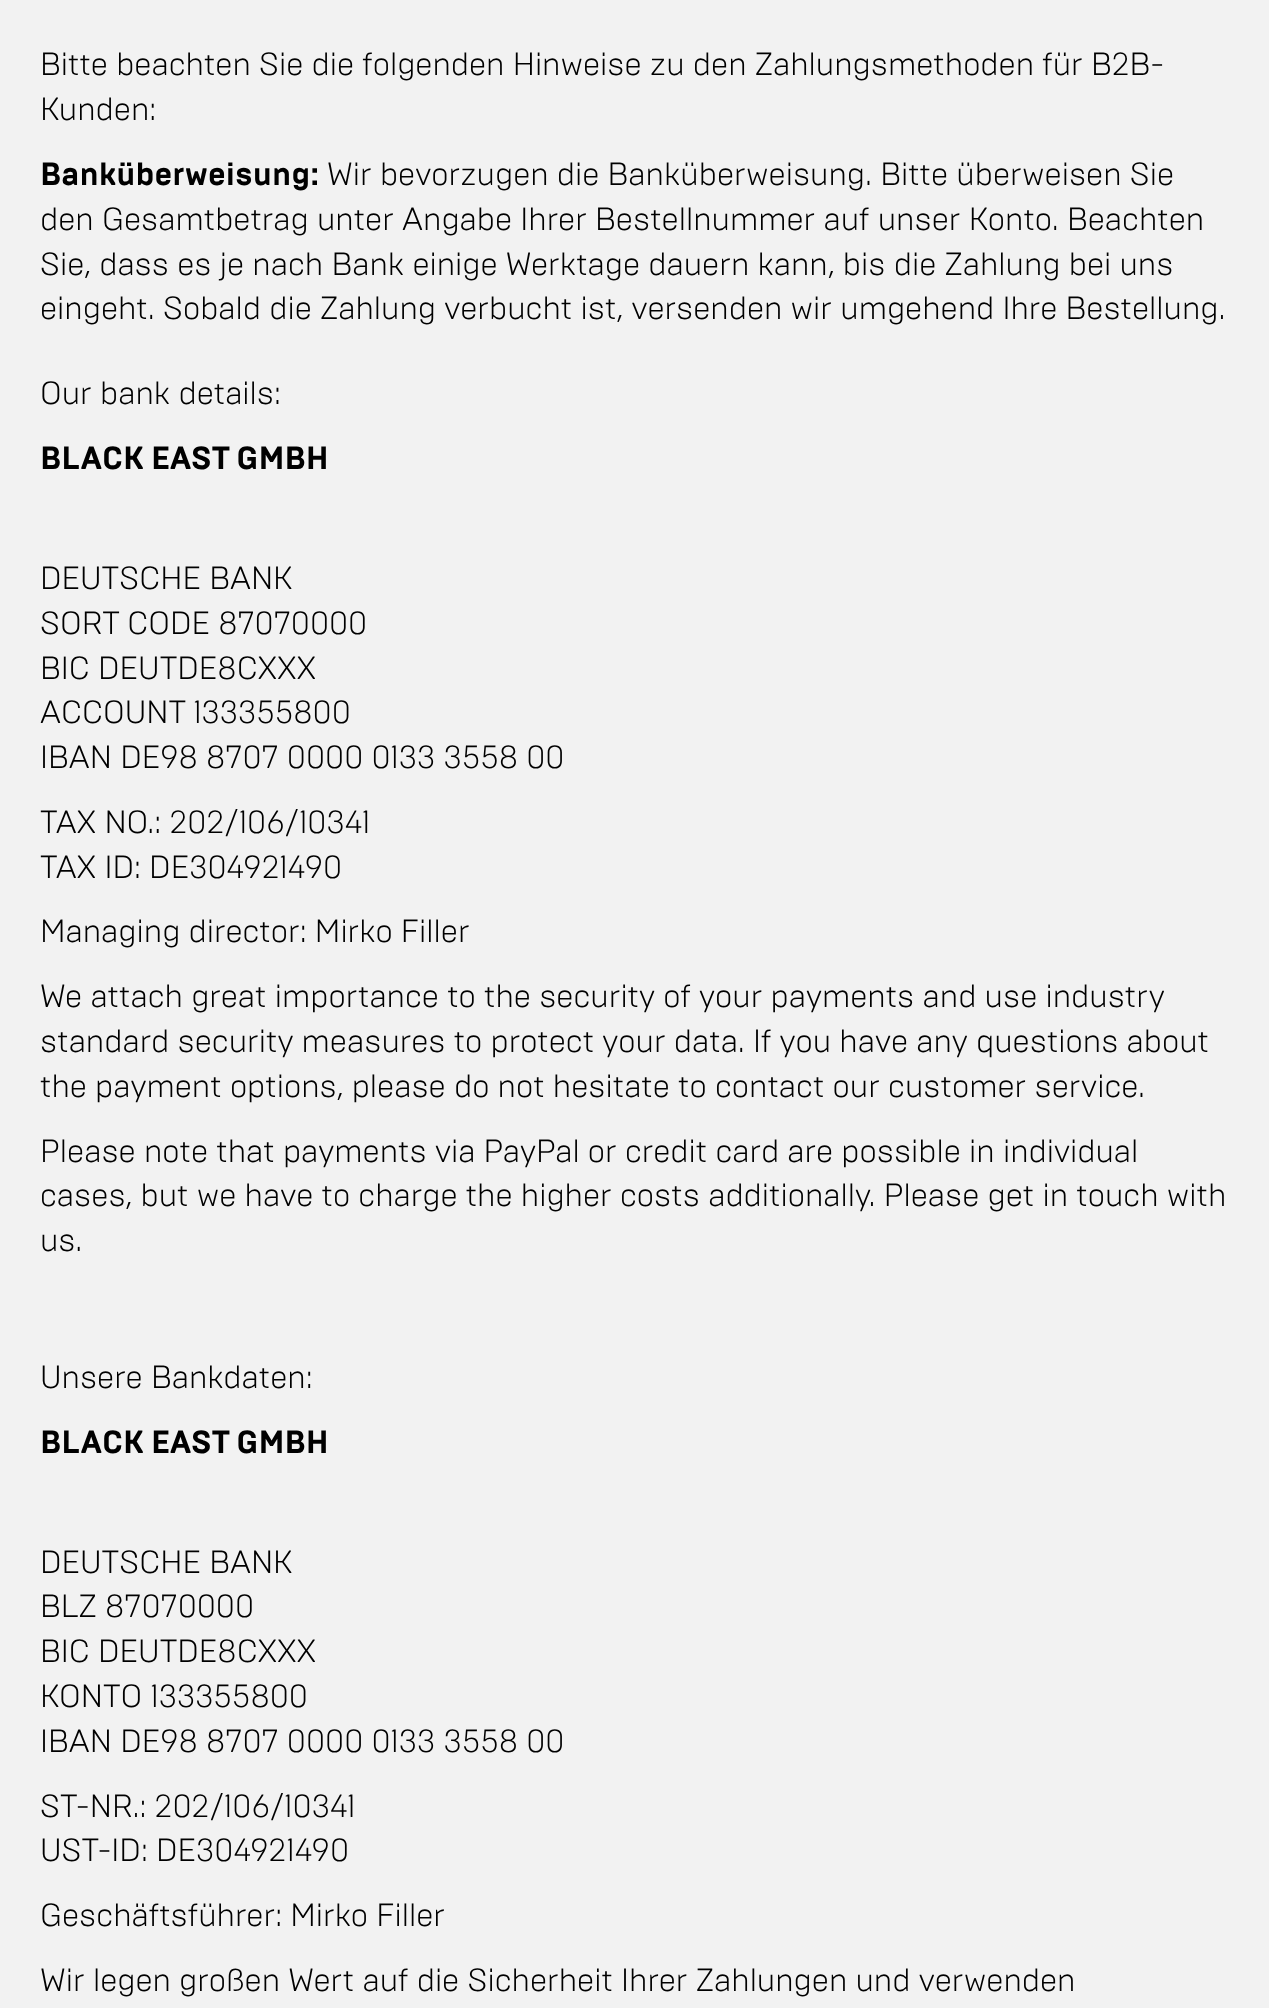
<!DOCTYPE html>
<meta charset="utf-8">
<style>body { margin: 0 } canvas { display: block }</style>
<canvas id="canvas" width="1269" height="2008"></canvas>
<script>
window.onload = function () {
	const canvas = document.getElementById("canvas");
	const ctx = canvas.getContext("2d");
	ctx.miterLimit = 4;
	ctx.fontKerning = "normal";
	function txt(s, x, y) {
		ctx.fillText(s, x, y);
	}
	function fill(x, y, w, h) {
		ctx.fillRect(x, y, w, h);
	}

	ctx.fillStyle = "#F2F2F2";
	fill(0, 0, 1269, 2008);
	ctx.font = "300 32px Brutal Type";
	ctx.fillStyle = "#000000";
	txt("Bitte beachten Sie die folgenden Hinweise zu den Zahlungsmethoden für B2B-", 40, 75);
	txt("Kunden:", 40, 120);
	ctx.font = "bold 32px Brutal Type";
	txt("Banküberweisung:", 40, 185);
	ctx.font = "300 32px Brutal Type";
	txt("Wir bevorzugen die Banküberweisung. Bitte überweisen Sie", 327, 185);
	txt("den Gesamtbetrag unter Angabe Ihrer Bestellnummer auf unser Konto. Beachten", 40, 230);
	txt("Sie, dass es je nach Bank einige Werktage dauern kann, bis die Zahlung bei uns", 40, 275);
	txt("eingeht. Sobald die Zahlung verbucht ist, versenden wir umgehend Ihre Bestellung.", 40, 319);
	txt("Our bank details:", 40, 404);
	ctx.font = "bold 32px Brutal Type";
	txt("BLACK EAST GMBH", 40, 469);
	ctx.font = "300 32px Brutal Type";
	txt("DEUTSCHE BANK", 40, 589);
	txt("SORT CODE 87070000", 40, 634);
	txt("BIC DEUTDE8CXXX", 40, 679);
	txt("ACCOUNT 133355800", 40, 723);
	txt("IBAN DE98 8707 0000 0133 3558 00", 40, 768);
	txt("TAX NO.: 202/106/10341", 40, 833);
	txt("TAX ID: DE304921490", 40, 878);
	txt("Managing director: Mirko Filler", 40, 942);
	txt("We attach great importance to the security of your payments and use industry", 40, 1007);
	txt("standard security measures to protect your data. If you have any questions about", 40, 1052);
	txt("the payment options, please do not hesitate to contact our customer service.", 40, 1097);
	txt("Please note that payments via PayPal or credit card are possible in individual", 40, 1162);
	txt("cases, but we have to charge the higher costs additionally. Please get in touch with", 40, 1206);
	txt("us.", 40, 1251);
	txt("Unsere Bankdaten:", 40, 1388);
	ctx.font = "bold 32px Brutal Type";
	txt("BLACK EAST GMBH", 40, 1453);
	ctx.font = "300 32px Brutal Type";
	txt("DEUTSCHE BANK", 40, 1573);
	txt("BLZ 87070000", 40, 1617);
	txt("BIC DEUTDE8CXXX", 40, 1662);
	txt("KONTO 133355800", 40, 1707);
	txt("IBAN DE98 8707 0000 0133 3558 00", 40, 1752);
	txt("ST-NR.: 202/106/10341", 40, 1817);
	txt("UST-ID: DE304921490", 40, 1861);
	txt("Geschäftsführer: Mirko Filler", 40, 1926);
	txt("Wir legen großen Wert auf die Sicherheit Ihrer Zahlungen und verwenden", 40, 1991);
};
</script>
